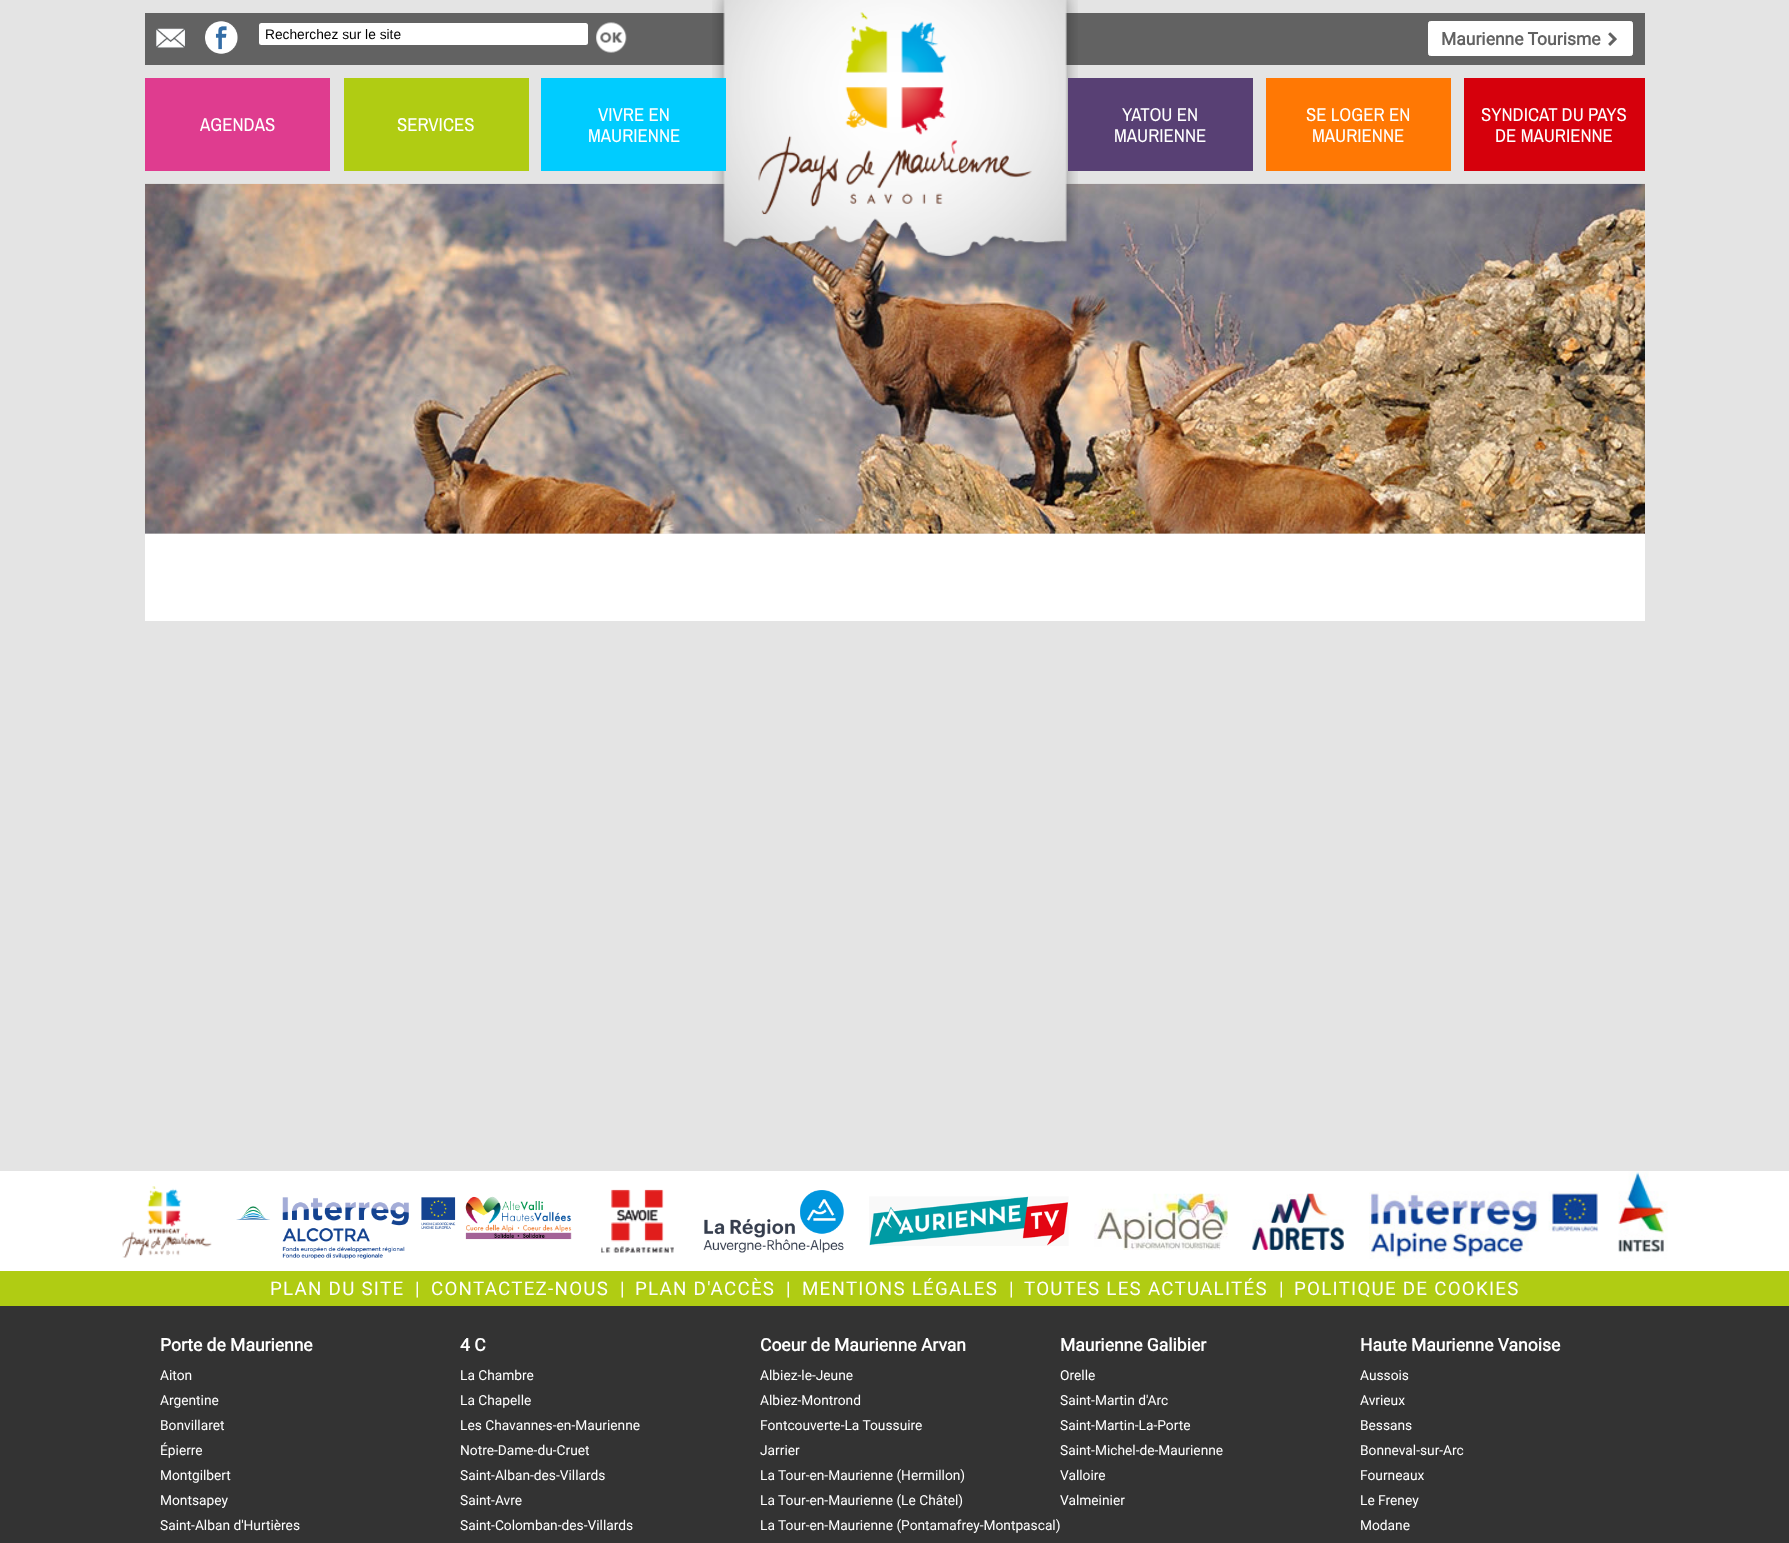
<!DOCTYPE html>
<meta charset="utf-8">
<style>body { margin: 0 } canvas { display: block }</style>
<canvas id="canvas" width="1789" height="1543"></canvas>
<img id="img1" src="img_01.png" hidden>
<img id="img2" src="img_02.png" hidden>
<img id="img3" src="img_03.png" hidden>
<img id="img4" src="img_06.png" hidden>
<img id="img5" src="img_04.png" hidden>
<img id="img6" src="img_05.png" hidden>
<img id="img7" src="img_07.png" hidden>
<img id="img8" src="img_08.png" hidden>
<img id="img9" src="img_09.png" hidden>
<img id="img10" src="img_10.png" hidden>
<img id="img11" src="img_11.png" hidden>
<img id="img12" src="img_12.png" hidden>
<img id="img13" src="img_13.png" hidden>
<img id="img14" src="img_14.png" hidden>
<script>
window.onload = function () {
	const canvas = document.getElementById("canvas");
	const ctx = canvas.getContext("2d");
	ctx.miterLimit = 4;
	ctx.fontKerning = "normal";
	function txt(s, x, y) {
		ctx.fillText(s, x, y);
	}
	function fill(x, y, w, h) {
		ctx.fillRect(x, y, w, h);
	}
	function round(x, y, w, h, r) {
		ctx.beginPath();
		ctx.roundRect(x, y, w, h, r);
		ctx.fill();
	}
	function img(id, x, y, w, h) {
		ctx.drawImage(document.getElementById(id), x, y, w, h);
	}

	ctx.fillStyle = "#E4E4E4";
	fill(0, 0, 1789, 1543);
	ctx.fillStyle = "#626262";
	fill(145, 13, 1500, 52);
	img("img1", 156, 28, 29, 20);
	img("img2", 205, 21, 33, 33);
	ctx.fillStyle = "#FFFFFF";
	round(259, 23, 329, 22, 2.5);
	img("img3", 596, 22, 31, 31);
	img("img4", 145, 183, 1500, 351);
	img("img5", 712, 0, 366, 267);
	ctx.beginPath();
	ctx.roundRect(1428.5, 21.5, 204, 34, 2);
	ctx.fill();
	ctx.strokeStyle = "#FFFFFF";
	ctx.stroke();
	img("img6", 1608, 32, 9, 14);
	ctx.fillStyle = "#DF3C8F";
	fill(145, 78, 185, 93);
	ctx.fillStyle = "#B0CC13";
	fill(344, 78, 185, 93);
	ctx.fillStyle = "#00CCFF";
	fill(541, 78, 185, 93);
	ctx.fillStyle = "#584074";
	fill(1068, 78, 185, 93);
	ctx.fillStyle = "#FF7804";
	fill(1266, 78, 185, 93);
	ctx.fillStyle = "#D6000C";
	fill(1464, 78, 181, 93);
	ctx.fillStyle = "#FFFFFF";
	fill(145, 534, 1500, 87);
	fill(0, 1171, 1789, 100);
	img("img7", 122, 1186, 90, 72);
	img("img8", 236, 1196, 336, 63);
	img("img9", 601, 1189, 73, 64);
	img("img10", 703, 1190, 141, 63);
	img("img11", 869, 1196, 200, 50);
	img("img12", 1094, 1193, 134, 57);
	img("img13", 1252, 1193, 92, 57);
	img("img14", 1369, 1171, 299, 88);
	ctx.fillStyle = "#333333";
	fill(0, 1306, 1789, 237);
	ctx.fillStyle = "#B0CC13";
	fill(0, 1271, 1789, 35);
	ctx.font = "13.75px Liberation Sans";
	ctx.fillStyle = "#000000";
	txt("Recherchez sur le site", 265, 39);
	ctx.font = "bold 17.5px Roboto";
	ctx.fillStyle = "#626262";
	txt("Maurienne Tourisme", 1441, 45);
	ctx.font = "18.75px Archivo Narrow";
	ctx.fillStyle = "#FFFFFF";
	txt("AGENDAS", 200, 131);
	txt("SERVICES", 397, 131);
	txt("VIVRE EN", 598, 121);
	txt("MAURIENNE", 588, 142);
	txt("YATOU EN", 1122, 121);
	txt("MAURIENNE", 1114, 142);
	txt("SE LOGER EN", 1306, 121);
	txt("MAURIENNE", 1312, 142);
	txt("SYNDICAT DU PAYS", 1481, 121);
	txt("DE MAURIENNE", 1495, 142);
	ctx.letterSpacing = "1.25px";
	ctx.font = "18.75px Roboto";
	txt("PLAN DU SITE", 270, 1295);
	ctx.letterSpacing = "0px";
	txt("|", 415, 1295);
	ctx.letterSpacing = "1.25px";
	txt("CONTACTEZ-NOUS", 431, 1295);
	ctx.letterSpacing = "0px";
	txt("|", 620, 1295);
	ctx.letterSpacing = "1.25px";
	txt("PLAN D'ACCÈS", 635, 1295);
	ctx.letterSpacing = "0px";
	txt("|", 786, 1295);
	ctx.letterSpacing = "1.25px";
	txt("MENTIONS LÉGALES", 802, 1295);
	ctx.letterSpacing = "0px";
	txt("|", 1009, 1295);
	ctx.letterSpacing = "1.25px";
	txt("TOUTES LES ACTUALITÉS", 1024, 1295);
	ctx.letterSpacing = "0px";
	txt("|", 1279, 1295);
	ctx.letterSpacing = "1.25px";
	txt("POLITIQUE DE COOKIES", 1294, 1295);
	ctx.letterSpacing = "0px";
	ctx.font = "bold 17.5px Roboto";
	txt("Porte de Maurienne", 160, 1351);
	ctx.font = "13.75px Roboto";
	txt("Aiton", 160, 1380);
	txt("Argentine", 160, 1405);
	txt("Bonvillaret", 160, 1430);
	txt("Épierre", 160, 1455);
	txt("Montgilbert", 160, 1480);
	txt("Montsapey", 160, 1505);
	txt("Saint-Alban d'Hurtières", 160, 1530);
	ctx.font = "bold 17.5px Roboto";
	txt("4 C", 460, 1351);
	ctx.font = "13.75px Roboto";
	txt("La Chambre", 460, 1380);
	txt("La Chapelle", 460, 1405);
	txt("Les Chavannes-en-Maurienne", 460, 1430);
	txt("Notre-Dame-du-Cruet", 460, 1455);
	txt("Saint-Alban-des-Villards", 460, 1480);
	txt("Saint-Avre", 460, 1505);
	txt("Saint-Colomban-des-Villards", 460, 1530);
	ctx.font = "bold 17.5px Roboto";
	txt("Coeur de Maurienne Arvan", 760, 1351);
	ctx.font = "13.75px Roboto";
	txt("Albiez-le-Jeune", 760, 1380);
	txt("Albiez-Montrond", 760, 1405);
	txt("Fontcouverte-La Toussuire", 760, 1430);
	txt("Jarrier", 760, 1455);
	txt("La Tour-en-Maurienne (Hermillon)", 760, 1480);
	txt("La Tour-en-Maurienne (Le Châtel)", 760, 1505);
	txt("La Tour-en-Maurienne (Pontamafrey-Montpascal)", 760, 1530);
	ctx.font = "bold 17.5px Roboto";
	txt("Maurienne Galibier", 1060, 1351);
	ctx.font = "13.75px Roboto";
	txt("Orelle", 1060, 1380);
	txt("Saint-Martin d'Arc", 1060, 1405);
	txt("Saint-Martin-La-Porte", 1060, 1430);
	txt("Saint-Michel-de-Maurienne", 1060, 1455);
	txt("Valloire", 1060, 1480);
	txt("Valmeinier", 1060, 1505);
	ctx.font = "bold 17.5px Roboto";
	txt("Haute Maurienne Vanoise", 1360, 1351);
	ctx.font = "13.75px Roboto";
	txt("Aussois", 1360, 1380);
	txt("Avrieux", 1360, 1405);
	txt("Bessans", 1360, 1430);
	txt("Bonneval-sur-Arc", 1360, 1455);
	txt("Fourneaux", 1360, 1480);
	txt("Le Freney", 1360, 1505);
	txt("Modane", 1360, 1530);
};
</script>
